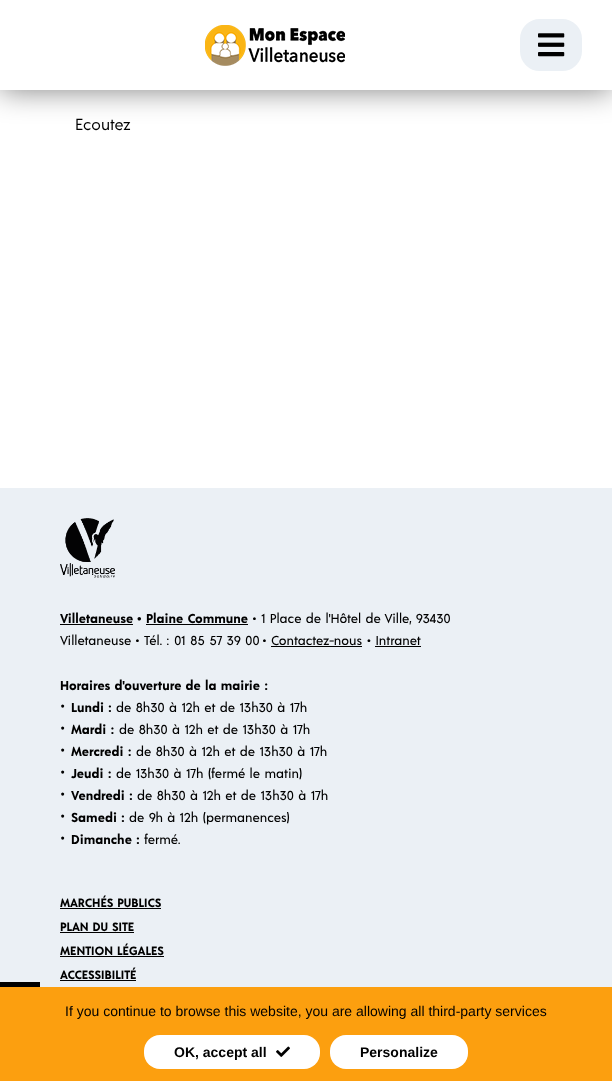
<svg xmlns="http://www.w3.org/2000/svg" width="612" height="1081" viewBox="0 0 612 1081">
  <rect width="100%" height="100%" fill="rgb(255,255,255)"/>
  <rect x="0" y="0" width="612" height="90" fill="rgba(0,0,0,0.5)" filter="blur(15px)"/>
  <rect x="0" y="0" width="612" height="90" fill="rgb(255,255,255)"/>
  <image x="205" y="25" width="140" height="41" href="pic1.png"/>
  <rect x="532.5" y="31.5" width="37" height="27" rx="7.5" fill="none" stroke="rgb(235,240,245)" stroke-width="25"/>
  <image x="538" y="33" width="27" height="24" href="pic2.png"/>
  <text x="75" y="130" font-family="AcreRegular" font-size="16" fill="rgb(0,0,0)">Ecoutez</text>
  <rect x="0" y="488" width="612" height="499" fill="rgb(235,240,245)"/>
  <image x="60" y="518" width="55" height="60" href="pic3.png"/>
  <text x="60" y="623" font-family="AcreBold" font-size="13" font-weight="bold" fill="rgb(0,0,0)">Villetaneuse</text>
  <rect x="60" y="624" width="73" height="1" fill="rgb(0,0,0)"/>
  <text x="137" y="623" font-family="Liberation Sans" font-size="13" fill="rgb(0,0,0)">•</text>
  <text x="146" y="623" font-family="AcreBold" font-size="13" font-weight="bold" fill="rgb(0,0,0)">Plaine Commune</text>
  <rect x="146" y="624" width="102" height="1" fill="rgb(0,0,0)"/>
  <g font-family="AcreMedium" font-size="13" font-weight="500" fill="rgb(0,0,0)">
    <text x="252" y="623">• 1 Place de l'Hôtel de Ville, 93430</text>
    <text x="60" y="645">Villetaneuse</text>
    <text x="135" y="645">•</text>
    <text x="144" y="645">Tél.</text>
    <text x="166" y="645" word-spacing="0.5">: 01 85 57 39 00</text>
    <text x="262" y="645">•</text>
    <text x="271" y="645">Contactez-nous • Intranet</text>
  </g>
  <rect x="271" y="646" width="91" height="1" fill="rgb(0,0,0)"/>
  <rect x="375" y="646" width="46" height="1" fill="rgb(0,0,0)"/>
  <text x="60" y="690" font-family="AcreBold" font-size="13" font-weight="bold" fill="rgb(0,0,0)">Horaires d'ouverture de la mairie :</text>
  <text x="60" y="712" font-family="AcreBold" font-size="18" font-weight="bold" fill="rgb(0,0,0)">·</text>
  <text x="71" y="712" font-family="AcreBold" font-size="13" font-weight="bold" fill="rgb(0,0,0)">Lundi :</text>
  <text x="116" y="712" font-family="AcreMedium" font-size="13" font-weight="500" fill="rgb(0,0,0)">de 8h30 à 12h et de 13h30 à 17h</text>
  <text x="60" y="734" font-family="AcreBold" font-size="18" font-weight="bold" fill="rgb(0,0,0)">·</text>
  <text x="71" y="734" font-family="AcreBold" font-size="13" font-weight="bold" fill="rgb(0,0,0)">Mardi :</text>
  <text x="119" y="734" font-family="AcreMedium" font-size="13" font-weight="500" fill="rgb(0,0,0)">de 8h30 à 12h et de 13h30 à 17h</text>
  <text x="60" y="756" font-family="AcreBold" font-size="18" font-weight="bold" fill="rgb(0,0,0)">·</text>
  <text x="71" y="756" font-family="AcreBold" font-size="13" font-weight="bold" fill="rgb(0,0,0)">Mercredi :</text>
  <text x="136" y="756" font-family="AcreMedium" font-size="13" font-weight="500" fill="rgb(0,0,0)">de 8h30 à 12h et de 13h30 à 17h</text>
  <text x="60" y="778" font-family="AcreBold" font-size="18" font-weight="bold" fill="rgb(0,0,0)">·</text>
  <text x="71" y="778" font-family="AcreBold" font-size="13" font-weight="bold" fill="rgb(0,0,0)">Jeudi :</text>
  <text x="116" y="778" font-family="AcreMedium" font-size="13" font-weight="500" fill="rgb(0,0,0)">de 13h30 à 17h (fermé le matin)</text>
  <text x="60" y="800" font-family="AcreBold" font-size="18" font-weight="bold" fill="rgb(0,0,0)">·</text>
  <text x="71" y="800" font-family="AcreBold" font-size="13" font-weight="bold" fill="rgb(0,0,0)">Vendredi :</text>
  <text x="137" y="800" font-family="AcreMedium" font-size="13" font-weight="500" fill="rgb(0,0,0)">de 8h30 à 12h et de 13h30 à 17h</text>
  <text x="60" y="822" font-family="AcreBold" font-size="18" font-weight="bold" fill="rgb(0,0,0)">·</text>
  <text x="71" y="822" font-family="AcreBold" font-size="13" font-weight="bold" fill="rgb(0,0,0)">Samedi :</text>
  <text x="129" y="822" font-family="AcreMedium" font-size="13" font-weight="500" fill="rgb(0,0,0)">de 9h à 12h (permanences)</text>
  <text x="60" y="844" font-family="AcreBold" font-size="18" font-weight="bold" fill="rgb(0,0,0)">·</text>
  <text x="71" y="844" font-family="AcreBold" font-size="13" font-weight="bold" fill="rgb(0,0,0)">Dimanche :</text>
  <text x="144" y="844" font-family="AcreMedium" font-size="13" font-weight="500" fill="rgb(0,0,0)">fermé.</text>
  <text x="60" y="907" font-family="AcreBold" font-size="12" font-weight="bold" fill="rgb(0,0,0)">MARCHÉS PUBLICS</text>
  <rect x="60" y="908" width="101" height="1" fill="rgb(0,0,0)"/>
  <text x="60" y="931" font-family="AcreBold" font-size="12" font-weight="bold" fill="rgb(0,0,0)">PLAN DU SITE</text>
  <rect x="60" y="932" width="74" height="1" fill="rgb(0,0,0)"/>
  <text x="60" y="955" font-family="AcreBold" font-size="12" font-weight="bold" fill="rgb(0,0,0)">MENTION LÉGALES</text>
  <rect x="60" y="956" width="104" height="1" fill="rgb(0,0,0)"/>
  <text x="60" y="979" font-family="AcreBold" font-size="12" font-weight="bold" fill="rgb(0,0,0)">ACCESSIBILITÉ</text>
  <rect x="60" y="980" width="76" height="1" fill="rgb(0,0,0)"/>
  <rect x="0" y="982" width="40" height="5" fill="rgb(0,0,0)"/>
  <rect x="0" y="987" width="612" height="94" fill="rgb(252,159,15)"/>
  <text x="65" y="1016" font-family="Liberation Sans" font-size="14" fill="rgb(0,0,0)">If you continue to browse this website, you are allowing all third-party services</text>
  <rect x="144" y="1035" width="176" height="34" rx="16" fill="rgb(255,255,255)"/>
  <text x="174" y="1057" font-family="Liberation Sans" font-size="14" font-weight="bold" fill="rgb(0,0,0)">OK, accept all</text>
  <image x="276" y="1046" width="14" height="11" href="pic4.png"/>
  <rect x="330" y="1035" width="138" height="34" rx="16" fill="rgb(255,255,255)"/>
  <text x="360" y="1057" font-family="Liberation Sans" font-size="14" font-weight="bold" fill="rgb(0,0,0)">Personalize</text>
</svg>
